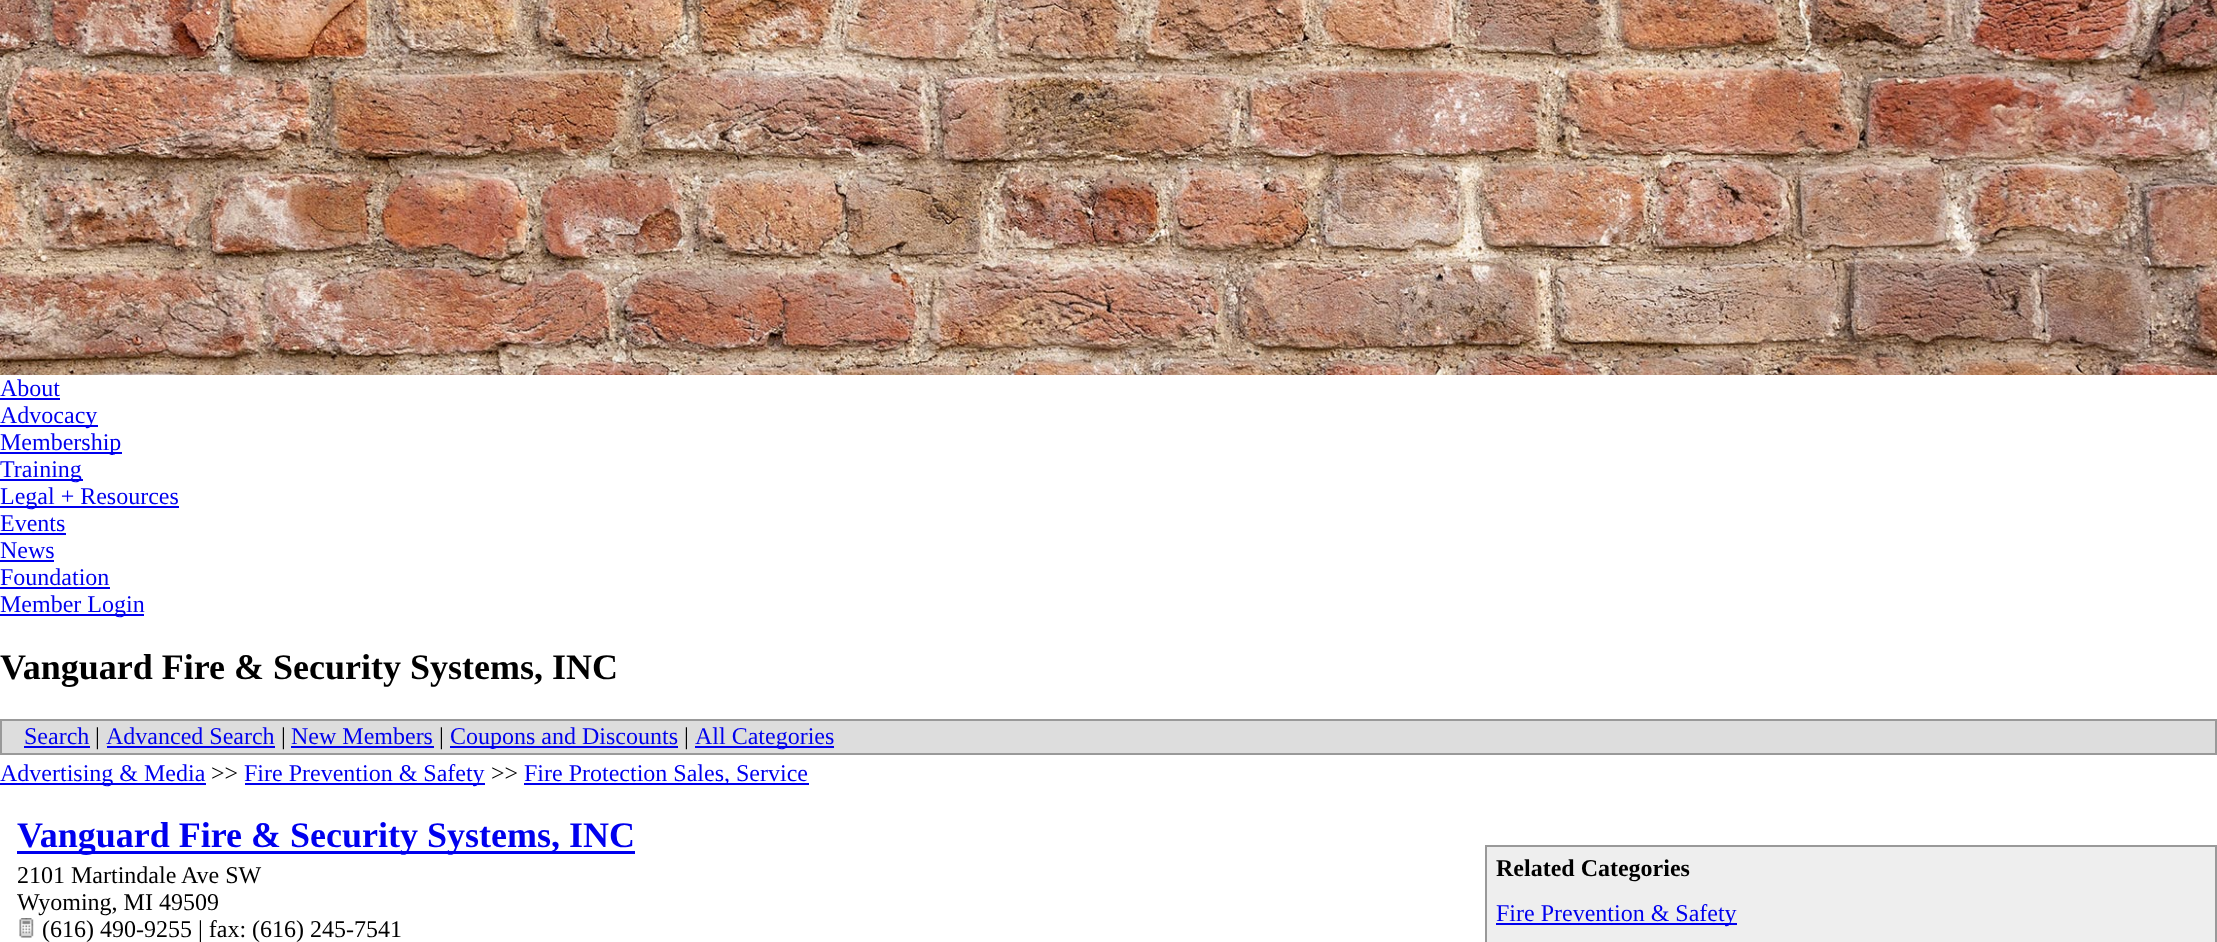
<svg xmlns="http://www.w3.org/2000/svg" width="2217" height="942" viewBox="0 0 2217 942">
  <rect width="100%" height="100%" fill="rgb(255,255,255)"/>
  <image x="0" y="0" width="2217" height="375" href="pic1.png"/>
  <text x="0" y="396" font-family="Liberation Serif" font-size="24" fill="rgb(0,0,238)">About</text>
  <rect x="0" y="398" width="60" height="2" fill="rgb(0,0,238)"/>
  <rect x="0" y="425" width="98" height="2" fill="rgb(0,0,238)"/>
  <text x="0" y="423" font-family="Liberation Serif" font-size="24" fill="rgb(0,0,238)">Advocacy</text>
  <rect x="0" y="452" width="122" height="2" fill="rgb(0,0,238)"/>
  <text x="0" y="450" font-family="Liberation Serif" font-size="24" fill="rgb(0,0,238)">Membership</text>
  <rect x="0" y="479" width="83" height="2" fill="rgb(0,0,238)"/>
  <text x="0" y="477" font-family="Liberation Serif" font-size="24" fill="rgb(0,0,238)">Training</text>
  <rect x="0" y="506" width="179" height="2" fill="rgb(0,0,238)"/>
  <g font-family="Liberation Serif" font-size="24" fill="rgb(0,0,238)">
    <text>
      <tspan x="0" y="504">Legal + Resources</tspan>
      <tspan x="0" y="531">Events</tspan>
    </text>
  </g>
  <rect x="0" y="533" width="66" height="2" fill="rgb(0,0,238)"/>
  <text x="0" y="558" font-family="Liberation Serif" font-size="24" fill="rgb(0,0,238)">News</text>
  <rect x="0" y="560" width="54" height="2" fill="rgb(0,0,238)"/>
  <text x="0" y="585" font-family="Liberation Serif" font-size="24" fill="rgb(0,0,238)">Foundation</text>
  <rect x="0" y="587" width="110" height="2" fill="rgb(0,0,238)"/>
  <rect x="0" y="614" width="144" height="2" fill="rgb(0,0,238)"/>
  <text x="0" y="612" font-family="Liberation Serif" font-size="24" fill="rgb(0,0,238)">Member Login</text>
  <text x="0" y="679" font-family="Liberation Serif" font-size="36" font-weight="bold" fill="rgb(0,0,0)">Vanguard Fire &amp; Security Systems, INC</text>
  <rect x="1" y="720" width="2215" height="34" fill="rgb(221,221,221)" stroke="rgb(153,153,153)" stroke-width="2"/>
  <text x="24" y="744" font-family="Liberation Serif" font-size="24" fill="rgb(0,0,238)">Search</text>
  <rect x="24" y="746" width="66" height="2" fill="rgb(0,0,238)"/>
  <text x="95" y="744" font-family="Liberation Serif" font-size="24" fill="rgb(0,0,0)">|</text>
  <text x="106" y="744" font-family="Liberation Serif" font-size="24" fill="rgb(0,0,238)">Advanced Search</text>
  <rect x="107" y="746" width="168" height="2" fill="rgb(0,0,238)"/>
  <text x="281" y="744" font-family="Liberation Serif" font-size="24" fill="rgb(0,0,0)">|</text>
  <text x="291" y="744" font-family="Liberation Serif" font-size="24" fill="rgb(0,0,238)">New Members</text>
  <rect x="291" y="746" width="143" height="2" fill="rgb(0,0,238)"/>
  <text x="439" y="744" font-family="Liberation Serif" font-size="24" fill="rgb(0,0,0)">|</text>
  <rect x="450" y="746" width="228" height="2" fill="rgb(0,0,238)"/>
  <text x="450" y="744" font-family="Liberation Serif" font-size="24" fill="rgb(0,0,238)">Coupons and Discounts</text>
  <text x="684" y="744" font-family="Liberation Serif" font-size="24" fill="rgb(0,0,0)">|</text>
  <rect x="695" y="746" width="139" height="2" fill="rgb(0,0,238)"/>
  <text x="695" y="744" font-family="Liberation Serif" font-size="24" fill="rgb(0,0,238)">All Categories</text>
  <rect x="0" y="783" width="206" height="2" fill="rgb(0,0,238)"/>
  <text x="0" y="781" font-family="Liberation Serif" font-size="24" fill="rgb(0,0,238)">Advertising &amp; Media</text>
  <text x="211" y="781" font-family="Liberation Serif" font-size="24" fill="rgb(0,0,0)">&gt;&gt;</text>
  <rect x="245" y="783" width="240" height="2" fill="rgb(0,0,238)"/>
  <text x="244" y="781" font-family="Liberation Serif" font-size="24" fill="rgb(0,0,238)">Fire Prevention &amp; Safety</text>
  <text x="491" y="781" font-family="Liberation Serif" font-size="24" fill="rgb(0,0,0)">&gt;&gt;</text>
  <rect x="524" y="783" width="285" height="2" fill="rgb(0,0,238)"/>
  <text x="524" y="781" font-family="Liberation Serif" font-size="24" fill="rgb(0,0,238)">Fire Protection Sales, Service</text>
  <rect x="17" y="851" width="618" height="3" fill="rgb(0,0,238)"/>
  <text x="17" y="847" font-family="Liberation Serif" font-size="36" font-weight="bold" fill="rgb(0,0,238)">Vanguard Fire &amp; Security Systems, INC</text>
  <g font-family="Liberation Serif" font-size="24" fill="rgb(0,0,0)">
    <text>
      <tspan x="17" y="883">2101 Martindale Ave SW</tspan>
      <tspan x="17" y="910">Wyoming, MI 49509</tspan>
    </text>
  </g>
  <image x="19" y="918" width="15" height="20" href="pic2.png"/>
  <text x="42" y="937" font-family="Liberation Serif" font-size="24" fill="rgb(0,0,0)">(616) 490-9255 | fax: (616) 245-7541</text>
  <rect x="1486" y="846" width="730" height="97" fill="rgb(238,238,238)" stroke="rgb(153,153,153)" stroke-width="2"/>
  <text x="1496" y="876" font-family="Liberation Serif" font-size="24" font-weight="bold" fill="rgb(0,0,0)">Related Categories</text>
  <rect x="1496" y="923" width="241" height="2" fill="rgb(0,0,238)"/>
  <text x="1496" y="921" font-family="Liberation Serif" font-size="24" fill="rgb(0,0,238)">Fire Prevention &amp; Safety</text>
</svg>
